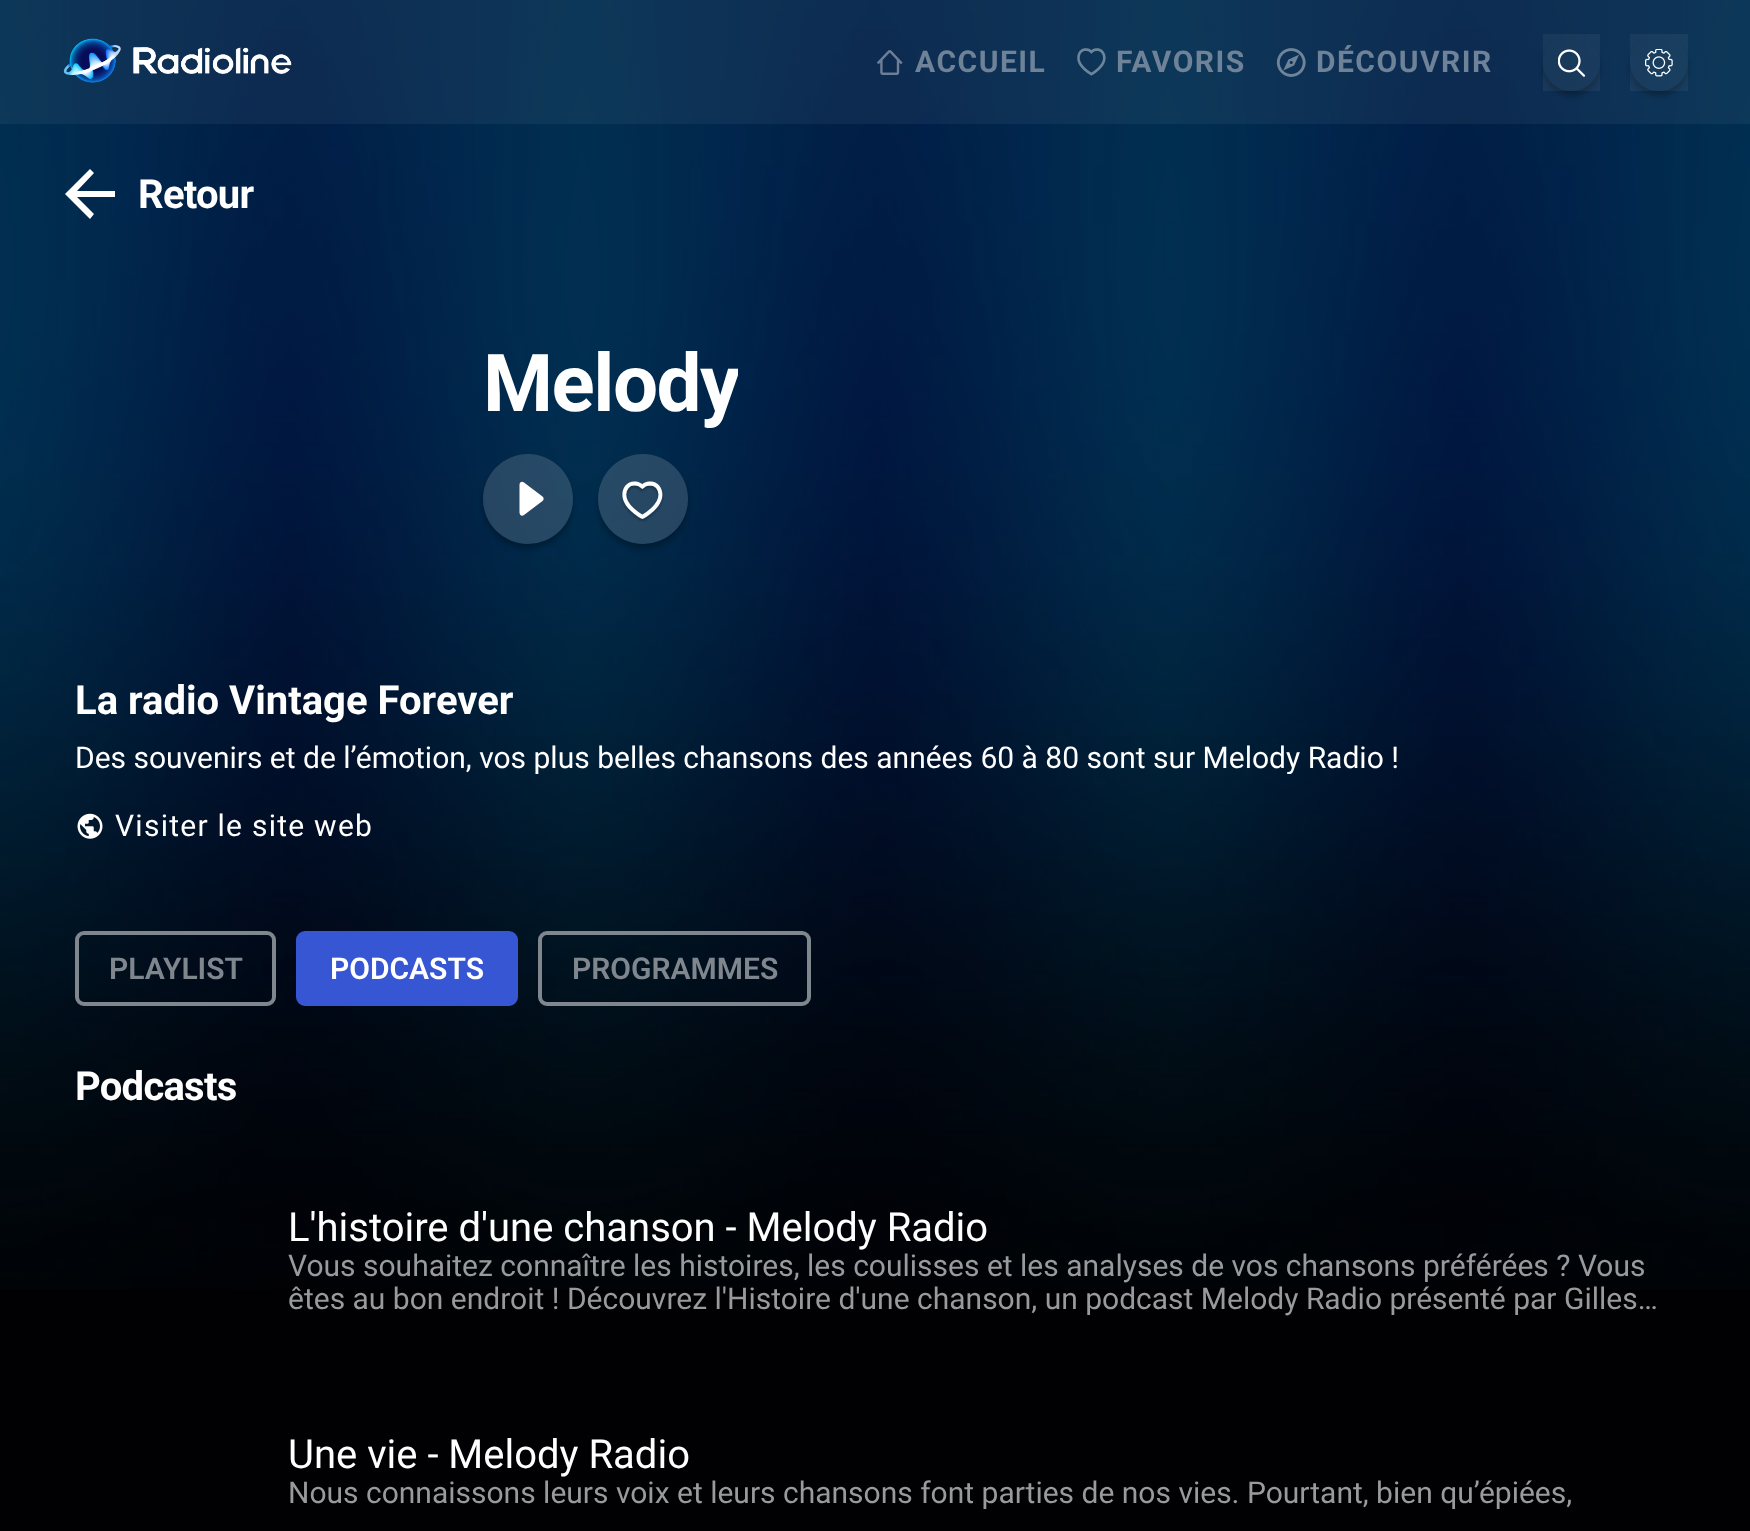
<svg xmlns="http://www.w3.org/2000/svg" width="1750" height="1531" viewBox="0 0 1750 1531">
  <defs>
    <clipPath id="clip1"><path d="M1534 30H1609V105H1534ZM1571.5 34C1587 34 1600 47 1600 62.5C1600 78 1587 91 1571.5 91C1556 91 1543 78 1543 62.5C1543 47 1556 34 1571.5 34Z" clip-rule="evenodd"/></clipPath>
    <clipPath id="clip2"><path d="M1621 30H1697V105H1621ZM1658.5 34H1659.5C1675 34 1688 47 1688 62.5C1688 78 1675 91 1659.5 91H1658.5C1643 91 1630 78 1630 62.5C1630 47 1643 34 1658.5 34Z" clip-rule="evenodd"/></clipPath>
    <clipPath id="clip3"><rect x="483" y="341" width="255" height="88"/></clipPath>
    <clipPath id="clip4"><path d="M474 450H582V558H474ZM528 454C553 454 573 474 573 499C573 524 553 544 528 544C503 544 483 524 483 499C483 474 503 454 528 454Z" clip-rule="evenodd"/></clipPath>
    <clipPath id="clip5"><path d="M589 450H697V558H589ZM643 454C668 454 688 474 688 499C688 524 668 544 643 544C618 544 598 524 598 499C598 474 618 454 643 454Z" clip-rule="evenodd"/></clipPath>
    <clipPath id="clip6"><rect x="75" y="676" width="1600" height="98"/></clipPath>
  </defs>
  <rect width="100%" height="100%" fill="rgb(1,1,3)"/>
  <image x="0" y="0" width="1750" height="1289" href="pic1.png"/>
  <rect x="0" y="0" width="1750" height="124" fill="rgba(255,255,255,0.05)"/>
  <image x="63" y="38" width="229" height="45" href="pic2.png"/>
  <image x="877" y="50" width="26" height="25" href="pic3.png"/>
  <text x="915" y="72" font-family="Roboto" font-size="30" font-weight="bold" letter-spacing="1.5" fill="rgb(110,130,152)">ACCUEIL</text>
  <image x="1077" y="48" width="29" height="28" href="pic4.png"/>
  <text x="1116" y="72" font-family="Roboto" font-size="30" font-weight="bold" letter-spacing="1.5" fill="rgb(110,130,152)">FAVORIS</text>
  <image x="1276" y="48" width="30" height="29" href="pic5.png"/>
  <text x="1316" y="72" font-family="Roboto" font-size="30" font-weight="bold" letter-spacing="1.5" fill="rgb(110,130,152)">DÉCOUVRIR</text>
  <g clip-path="url(#clip1)">
    <rect x="1543" y="39" width="57" height="57" rx="28.5" fill="rgba(0,0,0,0.25)" filter="blur(2.5px)"/>
  </g>
  <rect x="1543" y="34" width="57" height="57" fill="rgba(255,255,255,0.05)"/>
  <image x="1558" y="49" width="28" height="28" href="pic6.png"/>
  <g clip-path="url(#clip2)">
    <rect x="1630" y="39" width="58" height="57" rx="28.5" fill="rgba(0,0,0,0.25)" filter="blur(2.5px)"/>
  </g>
  <rect x="1630" y="34" width="58" height="57" fill="rgba(255,255,255,0.05)"/>
  <image x="1645" y="49" width="28" height="28" href="pic7.png"/>
  <path d="M115 191H77L94 173L90 169L65 194L90 219L94 214L77 197H115Z" fill="rgb(255,255,255)"/>
  <text x="138" y="208" font-family="Roboto" font-size="40" font-weight="bold" letter-spacing="-0.75" fill="rgb(255,255,255)">Retour</text>
  <g clip-path="url(#clip3)">
    <text x="483" y="411" font-family="Roboto" font-size="80" font-weight="bold" letter-spacing="-1.5" fill="rgb(255,255,255)">Melody</text>
  </g>
  <g clip-path="url(#clip4)">
    <rect x="483" y="459" width="90" height="90" rx="45" fill="rgba(0,0,0,0.25)" filter="blur(2.5px)"/>
  </g>
  <circle cx="528" cy="499" r="45" fill="rgba(255,255,255,0.15)"/>
  <path d="M542.5 496.5L524 482.5C522 481 519.5 482 519.5 485V512.5C519.5 515.5 522 516.5 524 515L542.5 501C544 500 544 497.5 542.5 496.5Z" fill="rgb(255,255,255)"/>
  <g clip-path="url(#clip5)">
    <rect x="598" y="459" width="90" height="90" rx="45" fill="rgba(0,0,0,0.25)" filter="blur(2.5px)"/>
  </g>
  <circle cx="643" cy="499" r="45" fill="rgba(255,255,255,0.15)"/>
  <image x="621" y="481" width="43" height="41" href="pic8.png"/>
  <text x="75" y="714" font-family="Roboto" font-size="40" font-weight="bold" fill="rgb(255,255,255)">La radio Vintage Forever</text>
  <g clip-path="url(#clip6)">
    <text x="75" y="768" font-family="Roboto" font-size="30" fill="rgb(255,255,255)">Des souvenirs et de l’émotion, vos plus belles chansons des années 60 à 80 sont sur Melody Radio !</text>
  </g>
  <image x="77" y="813" width="26" height="26" href="pic9.png"/>
  <text x="115" y="836" font-family="Roboto" font-size="30" letter-spacing="1.25" fill="rgb(255,255,255)">Visiter le site web</text>
  <rect x="77" y="933" width="197" height="71" rx="7" fill="none" stroke="rgb(127,134,142)" stroke-width="4"/>
  <text x="109" y="979" font-family="Roboto" font-size="30" font-weight="600" fill="rgb(127,134,142)">PLAYLIST</text>
  <rect x="298" y="933" width="218" height="71" rx="7" fill="rgb(55,86,211)" stroke="rgb(55,86,211)" stroke-width="4"/>
  <text x="330" y="979" font-family="Roboto" font-size="30" font-weight="600" fill="rgb(255,255,255)">PODCASTS</text>
  <rect x="540" y="933" width="269" height="71" rx="7" fill="none" stroke="rgb(127,134,142)" stroke-width="4"/>
  <text x="572" y="979" font-family="Roboto" font-size="30" font-weight="600" fill="rgb(127,134,142)">PROGRAMMES</text>
  <text x="75" y="1100" font-family="Roboto" font-size="40" font-weight="bold" letter-spacing="-0.75" fill="rgb(255,255,255)">Podcasts</text>
  <text x="288" y="1241" font-family="Roboto" font-size="40" fill="rgb(255,255,255)">L'histoire d'une chanson - Melody Radio</text>
  <g font-family="Roboto" font-size="30" fill="rgb(153,154,156)">
    <text>
      <tspan x="288" y="1276">Vous souhaitez connaître les histoires, les coulisses et les analyses de vos chansons préférées ? Vous</tspan>
      <tspan x="288" y="1309">êtes au bon endroit ! Découvrez l'Histoire d'une chanson, un podcast Melody Radio présenté par Gilles…</tspan>
    </text>
  </g>
  <text x="288" y="1468" font-family="Roboto" font-size="40" fill="rgb(255,255,255)">Une vie - Melody Radio</text>
  <text x="288" y="1503" font-family="Roboto" font-size="30" fill="rgb(153,154,156)">Nous connaissons leurs voix et leurs chansons font parties de nos vies. Pourtant, bien qu’épiées,</text>
</svg>
